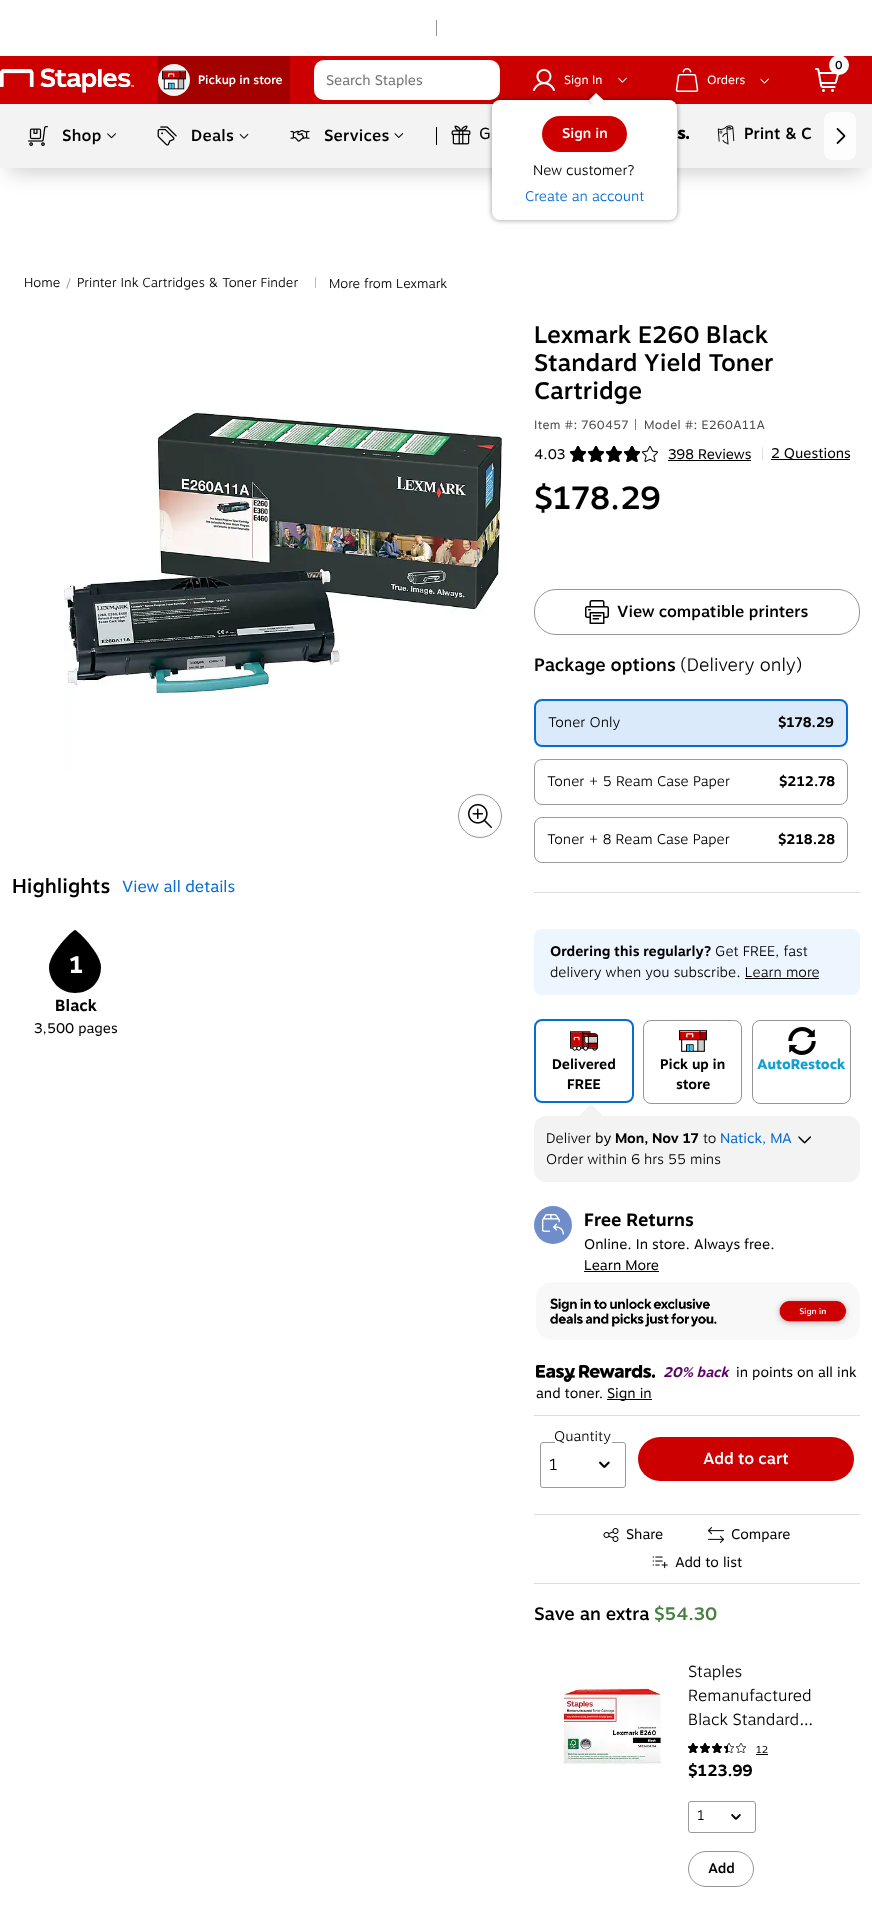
<svg xmlns="http://www.w3.org/2000/svg" width="872" height="1922" viewBox="0 0 872 1922">
  <rect width="100%" height="100%" fill="rgb(255,255,255)"/>
  <rect x="436" y="20" width="1" height="16" fill="rgb(150,150,151)"/>
  <rect x="0" y="56" width="872" height="48" fill="rgb(204,0,0)"/>
  <image x="0" y="68" width="134" height="25" href="pic1.png"/>
  <rect x="158" y="56" width="132" height="48" fill="rgb(163,0,0)"/>
  <circle cx="174" cy="80" r="16" fill="rgb(243,243,243)"/>
  <image x="162" y="70" width="24" height="20" href="pic2.png"/>
  <text x="198" y="84" font-family="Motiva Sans" font-size="12" font-weight="500" fill="rgb(255,255,255)">Pickup in store</text>
  <rect x="314" y="60" width="186" height="40" rx="10" fill="rgb(255,255,255)"/>
  <text x="326" y="85" font-family="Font" font-size="14" fill="rgb(117,117,117)">Search Staples</text>
  <image x="815" y="68" width="24" height="24" href="pic3.png"/>
  <circle cx="839" cy="65" r="9" fill="rgb(255,255,255)" stroke="rgb(255,255,255)" stroke-width="2"/>
  <text x="835" y="69" font-family="Font" font-size="11" font-weight="bold" fill="rgb(0,0,0)">0</text>
  <image x="533" y="69" width="22" height="22" href="pic4.png"/>
  <text x="564" y="84" font-family="Font" font-size="12" fill="rgb(255,255,255)">Sign In</text>
  <image x="618" y="77" width="9" height="6" href="pic5.png"/>
  <rect x="9" y="126" width="854" height="46" fill="rgba(0,0,0,0.2)" filter="blur(10.5px)"/>
  <rect x="0" y="104" width="872" height="64" fill="rgb(243,243,243)"/>
  <image x="677" y="129" width="12" height="11" href="pic15.png"/>
  <rect x="491" y="99" width="187" height="122" rx="9" fill="rgba(0,0,0,0.3)" filter="blur(2px)"/>
  <rect x="492" y="100" width="185" height="120" rx="8" fill="rgb(255,255,255)"/>
  <rect x="589" y="93" width="10" height="10" fill="rgba(0,0,0,0.2)" filter="blur(1.5px)"/>
  <path d="M596 93L603.5 100L596 107L589 100Z" fill="rgb(255,255,255)"/>
  <rect x="542" y="116" width="85" height="36" rx="18" fill="rgb(204,0,0)"/>
  <text x="562" y="138" font-family="Motiva Sans" font-size="14" font-weight="500" fill="rgb(255,255,255)">Sign in</text>
  <text x="533" y="175" font-family="Motiva Sans" font-size="14" font-weight="300" fill="rgb(0,0,0)">New customer?</text>
  <text x="525" y="201" font-family="Motiva Sans" font-size="14" font-weight="300" fill="rgb(8,109,210)">Create an account</text>
  <image x="675" y="68" width="24" height="24" href="pic6.png"/>
  <text x="707" y="84" font-family="Font" font-size="12" fill="rgb(255,255,255)">Orders</text>
  <image x="760" y="78" width="9" height="6" href="pic7.png"/>
  <image x="28" y="126" width="20" height="20" href="pic8.png"/>
  <text x="62" y="141" font-family="Motiva Sans" font-size="16" font-weight="500" letter-spacing="0.25" fill="rgb(0,0,0)">Shop</text>
  <image x="107" y="133" width="9" height="6" href="pic9.png"/>
  <image x="157" y="126" width="20" height="20" href="pic10.png"/>
  <text x="191" y="141" font-family="Motiva Sans" font-size="16" font-weight="500" letter-spacing="0.25" fill="rgb(0,0,0)">Deals</text>
  <image x="239" y="133" width="10" height="6" href="pic11.png"/>
  <image x="290" y="130" width="20" height="12" href="pic12.png"/>
  <text x="324" y="141" font-family="Motiva Sans" font-size="16" font-weight="500" letter-spacing="0.25" fill="rgb(0,0,0)">Services</text>
  <image x="394" y="133" width="10" height="5" href="pic13.png"/>
  <rect x="436" y="127" width="1" height="18" fill="rgb(0,0,0)"/>
  <image x="451" y="125" width="20" height="20" href="pic14.png"/>
  <text x="479" y="139" font-family="Font" font-size="16" fill="rgb(0,0,0)">G</text>
  <image x="717" y="125" width="18" height="20" href="pic16.png"/>
  <text x="744" y="139" font-family="Motiva Sans" font-size="16" font-weight="500" fill="rgb(0,0,0)">Print &amp; C</text>
  <rect x="824" y="112" width="32" height="48" rx="8" fill="rgb(253,253,253)"/>
  <image x="836" y="128" width="10" height="16" href="pic17.png"/>
  <text x="24" y="287" font-family="Motiva Sans" font-size="13" font-weight="300" fill="rgb(0,0,0)">Home</text>
  <text x="66" y="288" font-family="Motiva Sans" font-size="13" font-weight="300" fill="rgb(150,150,150)">/</text>
  <text x="77" y="287" font-family="Motiva Sans" font-size="13" font-weight="300" fill="rgb(0,0,0)">Printer Ink Cartridges &amp; Toner Finder</text>
  <text x="314" y="287" font-family="Motiva Sans" font-size="12" font-weight="300" fill="rgb(150,150,150)">|</text>
  <text x="329" y="288" font-family="Motiva Sans" font-size="13" font-weight="300" fill="rgb(0,0,0)">More from Lexmark</text>
  <image x="64" y="334" width="438" height="438" href="pic18.png"/>
  <circle cx="480" cy="816" r="21.5" fill="none" stroke="rgb(150,150,150)"/>
  <image x="468" y="804" width="24" height="24" href="pic19.png"/>
  <text x="12" y="893" font-family="Motiva Sans" font-size="20" font-weight="500" fill="rgb(0,0,0)">Highlights</text>
  <text x="122" y="892" font-family="Font" font-size="16" fill="rgb(8,109,210)">View all details</text>
  <path d="M75 993C90 993 101 982 101 967C101 953 77 930 75 930C73 930 49 953 49 967C49 982 61 993 75 993" fill="rgb(0,0,0)" fill-rule="evenodd"/>
  <text x="69" y="973" font-family="Motiva Sans" font-size="24" font-weight="bold" fill="rgb(255,255,255)">1</text>
  <text x="55" y="1011" font-family="Motiva Sans" font-size="16" font-weight="bold" fill="rgb(0,0,0)">Black</text>
  <text x="34" y="1033" font-family="Font" font-size="14" fill="rgb(0,0,0)">3,500 pages</text>
  <g font-family="Motiva Sans" font-size="24" font-weight="500" fill="rgb(0,0,0)">
    <text>
      <tspan x="534" y="343">Lexmark E260 Black</tspan>
      <tspan x="534" y="371">Standard Yield Toner</tspan>
      <tspan x="534" y="399">Cartridge</tspan>
    </text>
  </g>
  <g font-family="Font" font-size="12" letter-spacing="0.4" fill="rgb(77,77,79)">
    <text x="534" y="429">Item #: 760457</text>
    <text x="634" y="429">|</text>
    <text x="644" y="429">Model #: E260A11A</text>
  </g>
  <text x="534" y="459" font-family="Font" font-size="14" fill="rgb(0,0,0)">4.03</text>
  <image x="570" y="446" width="16" height="16" href="pic20.png"/>
  <image x="570" y="446" width="16" height="16" href="pic21.png"/>
  <image x="588" y="446" width="16" height="16" href="pic20.png"/>
  <image x="588" y="446" width="16" height="16" href="pic21.png"/>
  <image x="606" y="446" width="16" height="16" href="pic20.png"/>
  <image x="606" y="446" width="16" height="16" href="pic21.png"/>
  <image x="624" y="446" width="16" height="16" href="pic20.png"/>
  <image x="624" y="446" width="16" height="16" href="pic21.png"/>
  <image x="642" y="446" width="16" height="16" href="pic22.png"/>
  <text x="668" y="459" font-family="Font" font-size="14" fill="rgb(0,0,0)">398 Reviews</text>
  <rect x="668" y="460" width="83" height="1" fill="rgb(0,0,0)"/>
  <text x="761" y="459" font-family="Font" font-size="14" fill="rgb(221,221,221)">|</text>
  <rect x="771" y="459" width="79" height="1" fill="rgb(0,0,0)"/>
  <text x="771" y="458" font-family="Font" font-size="14" fill="rgb(0,0,0)">2 Questions</text>
  <text x="534" y="509" font-family="Motiva Sans" font-size="32" font-weight="500" fill="rgb(0,0,0)">$178.29</text>
  <rect x="534.5" y="589.5" width="325" height="45" rx="21.5" fill="none" stroke="rgb(150,150,150)"/>
  <image x="585" y="600" width="24" height="24" href="pic23.png"/>
  <text x="617" y="617" font-family="Motiva Sans" font-size="16" font-weight="500" fill="rgb(0,0,0)">View compatible printers</text>
  <rect x="534" y="892" width="326" height="1" fill="rgb(221,221,221)"/>
  <text x="534" y="671" font-family="Motiva Sans" font-size="18" font-weight="500" fill="rgb(0,0,0)">Package options</text>
  <text x="680" y="671" font-family="Motiva Sans" font-size="18" font-weight="300" fill="rgb(0,0,0)">(Delivery only)</text>
  <rect x="535" y="700" width="312" height="46" rx="7" fill="rgb(218,234,251)" stroke="rgb(8,109,210)" stroke-width="2"/>
  <text x="548" y="727" font-family="Motiva Sans" font-size="14" font-weight="300" fill="rgb(0,0,0)">Toner Only</text>
  <text x="778" y="727" font-family="Motiva Sans" font-size="14" font-weight="bold" fill="rgb(0,0,0)">$178.29</text>
  <rect x="534.5" y="759.5" width="313" height="45" rx="7.5" fill="none" stroke="rgb(155,155,155)"/>
  <text x="547" y="786" font-family="Motiva Sans" font-size="14" font-weight="300" fill="rgb(0,0,0)">Toner + 5 Ream Case Paper</text>
  <text x="779" y="786" font-family="Motiva Sans" font-size="14" font-weight="bold" fill="rgb(0,0,0)">$212.78</text>
  <rect x="534.5" y="817.5" width="313" height="45" rx="7.5" fill="none" stroke="rgb(155,155,155)"/>
  <text x="547" y="844" font-family="Motiva Sans" font-size="14" font-weight="300" fill="rgb(0,0,0)">Toner + 8 Ream Case Paper</text>
  <text x="778" y="844" font-family="Motiva Sans" font-size="14" font-weight="bold" fill="rgb(0,0,0)">$218.28</text>
  <rect x="534" y="929" width="326" height="66" rx="8" fill="rgb(237,246,255)"/>
  <text x="550" y="956" font-family="Motiva Sans" font-size="14" font-weight="bold" fill="rgb(0,0,0)">Ordering this regularly?</text>
  <g font-family="Motiva Sans" font-size="14" font-weight="300" fill="rgb(0,0,0)">
    <text x="715" y="956">Get FREE, fast</text>
    <text x="550" y="977">delivery when you subscribe. Learn more</text>
  </g>
  <rect x="745" y="978" width="74" height="1" fill="rgb(0,0,0)"/>
  <rect x="535" y="1020" width="98" height="82" rx="7" fill="none" stroke="rgb(8,109,210)" stroke-width="2"/>
  <image x="570" y="1031" width="28" height="20" href="pic24.png"/>
  <g font-family="Motiva Sans" font-size="14" font-weight="bold" fill="rgb(0,0,0)">
    <text x="552" y="1069">Delivered</text>
    <text x="567" y="1089">FREE</text>
  </g>
  <rect x="643.5" y="1020.5" width="98" height="83" rx="7.5" fill="none" stroke="rgb(150,150,150)"/>
  <image x="679" y="1030" width="28" height="22" href="pic25.png"/>
  <g font-family="Motiva Sans" font-size="14" font-weight="bold" fill="rgb(0,0,0)">
    <text x="660" y="1069">Pick up in</text>
    <text x="676" y="1089">store</text>
  </g>
  <rect x="752.5" y="1020.5" width="98" height="83" rx="7.5" fill="none" stroke="rgb(150,150,150)"/>
  <image x="788" y="1027" width="27" height="14" href="pic26.png"/>
  <image x="789" y="1041" width="27" height="14" href="pic27.png"/>
  <text x="757" y="1069" font-family="Motiva Sans" font-size="14" font-weight="800" fill="rgb(16,160,209)">AutoRestock</text>
  <path d="M603 1116H579L591 1104Z" fill="rgb(243,243,243)"/>
  <rect x="534" y="1116" width="326" height="66" rx="12" fill="rgb(243,243,243)"/>
  <text x="546" y="1143" font-family="Motiva Sans" font-size="14" font-weight="300" fill="rgb(0,0,0)">Deliver</text>
  <text x="595" y="1143" font-family="Font" font-size="14" fill="rgb(0,0,0)">by</text>
  <text x="615" y="1143" font-family="Motiva Sans" font-size="14" font-weight="bold" fill="rgb(0,0,0)">Mon, Nov 17</text>
  <text x="703" y="1143" font-family="Motiva Sans" font-size="14" font-weight="300" fill="rgb(0,0,0)">to</text>
  <text x="720" y="1143" font-family="Font" font-size="14" fill="rgb(8,109,210)">Natick, MA</text>
  <image x="798" y="1136" width="13" height="8" href="pic28.png"/>
  <text x="546" y="1164" font-family="Motiva Sans" font-size="14" font-weight="300" fill="rgb(0,0,0)">Order within 6 hrs 55 mins</text>
  <circle cx="553" cy="1225" r="19" fill="rgb(111,141,200)"/>
  <image x="542" y="1214" width="22" height="21" href="pic29.png"/>
  <text x="584" y="1226" font-family="Motiva Sans" font-size="18" font-weight="bold" fill="rgb(0,0,0)">Free Returns</text>
  <g font-family="Font" font-size="14" fill="rgb(0,0,0)">
    <text>
      <tspan x="584" y="1249">Online. In store. Always free.</tspan>
      <tspan x="584" y="1270">Learn More</tspan>
    </text>
  </g>
  <rect x="584" y="1271" width="75" height="1" fill="rgb(0,0,0)"/>
  <image x="536" y="1282" width="324" height="58" href="pic30.png"/>
  <image x="536" y="1365" width="119" height="17" href="pic31.png"/>
  <text x="663" y="1377" font-family="Motiva Sans" font-size="14" font-weight="bold" font-style="italic" fill="rgb(91,0,105)">20% back</text>
  <g font-family="Font" font-size="14" fill="rgb(0,0,0)">
    <text x="736" y="1377">in points on all ink</text>
    <text x="536" y="1398">and toner.</text>
  </g>
  <rect x="607" y="1399" width="45" height="1" fill="rgb(0,0,0)"/>
  <text x="607" y="1398" font-family="Font" font-size="14" fill="rgb(0,0,0)">Sign in</text>
  <rect x="534" y="1415" width="326" height="1" fill="rgb(221,221,221)"/>
  <rect x="534" y="1514" width="326" height="1" fill="rgb(221,221,221)"/>
  <rect x="540.5" y="1442.5" width="85" height="45" rx="2.5" fill="none" stroke="rgb(155,155,155)"/>
  <rect x="555" y="1442" width="57" height="1" fill="rgb(255,255,255)"/>
  <text x="554" y="1441" font-family="Motiva Sans" font-size="14" font-weight="300" fill="rgb(0,0,0)">Quantity</text>
  <text x="549" y="1470" font-family="Motiva Sans" font-size="16" font-weight="300" fill="rgb(0,0,0)">1</text>
  <image x="599" y="1461" width="11" height="7" href="pic32.png"/>
  <rect x="638" y="1437" width="216" height="44" rx="22" fill="rgb(204,0,0)"/>
  <text x="703" y="1464" font-family="Motiva Sans" font-size="16" font-weight="500" fill="rgb(255,255,255)">Add to cart</text>
  <rect x="534" y="1583" width="326" height="1" fill="rgb(221,221,221)"/>
  <image x="603" y="1528" width="16" height="14" href="pic33.png"/>
  <text x="626" y="1539" font-family="Font" font-size="14" fill="rgb(0,0,0)">Share</text>
  <image x="708" y="1527" width="16" height="16" href="pic34.png"/>
  <text x="731" y="1539" font-family="Font" font-size="14" fill="rgb(0,0,0)">Compare</text>
  <image x="652" y="1556" width="16" height="13" href="pic35.png"/>
  <text x="675" y="1567" font-family="Font" font-size="14" fill="rgb(0,0,0)">Add to list</text>
  <text x="534" y="1620" font-family="Motiva Sans" font-size="18" font-weight="500" fill="rgb(0,0,0)">Save an extra</text>
  <text x="654" y="1620" font-family="Motiva Sans" font-size="18" font-weight="500" fill="rgb(71,129,64)">$54.30</text>
  <image x="558" y="1686" width="104" height="79" href="pic36.png"/>
  <g font-family="Motiva Sans" font-size="16" font-weight="300" fill="rgb(0,0,0)">
    <text>
      <tspan x="688" y="1677">Staples</tspan>
      <tspan x="688" y="1701">Remanufactured</tspan>
      <tspan x="688" y="1725">Black Standard…</tspan>
    </text>
  </g>
  <image x="688" y="1743" width="10" height="10" href="pic37.png"/>
  <image x="688" y="1743" width="10" height="10" href="pic38.png"/>
  <image x="700" y="1743" width="10" height="10" href="pic37.png"/>
  <image x="700" y="1743" width="10" height="10" href="pic38.png"/>
  <image x="712" y="1743" width="10" height="10" href="pic37.png"/>
  <image x="712" y="1743" width="10" height="10" href="pic38.png"/>
  <image x="724" y="1744" width="4" height="9" href="pic40.png"/>
  <image x="724" y="1743" width="10" height="10" href="pic39.png"/>
  <image x="736" y="1743" width="10" height="10" href="pic41.png"/>
  <text x="756" y="1753" font-family="Font" font-size="10" fill="rgb(0,0,0)">12</text>
  <rect x="756" y="1754" width="12" height="1" fill="rgb(0,0,0)"/>
  <text x="688" y="1776" font-family="Motiva Sans" font-size="16" font-weight="bold" fill="rgb(0,0,0)">$123.99</text>
  <rect x="688.5" y="1801.5" width="67" height="31" rx="2.5" fill="none" stroke="rgb(155,155,155)"/>
  <text x="697" y="1820" font-family="Motiva Sans" font-size="14" font-weight="300" fill="rgb(0,0,0)">1</text>
  <image x="731" y="1814" width="10" height="6" href="pic42.png"/>
  <rect x="688.5" y="1851.5" width="65" height="35" rx="17.5" fill="none" stroke="rgb(150,150,150)"/>
  <text x="708" y="1873" font-family="Motiva Sans" font-size="14" font-weight="500" fill="rgb(0,0,0)">Add</text>
</svg>
